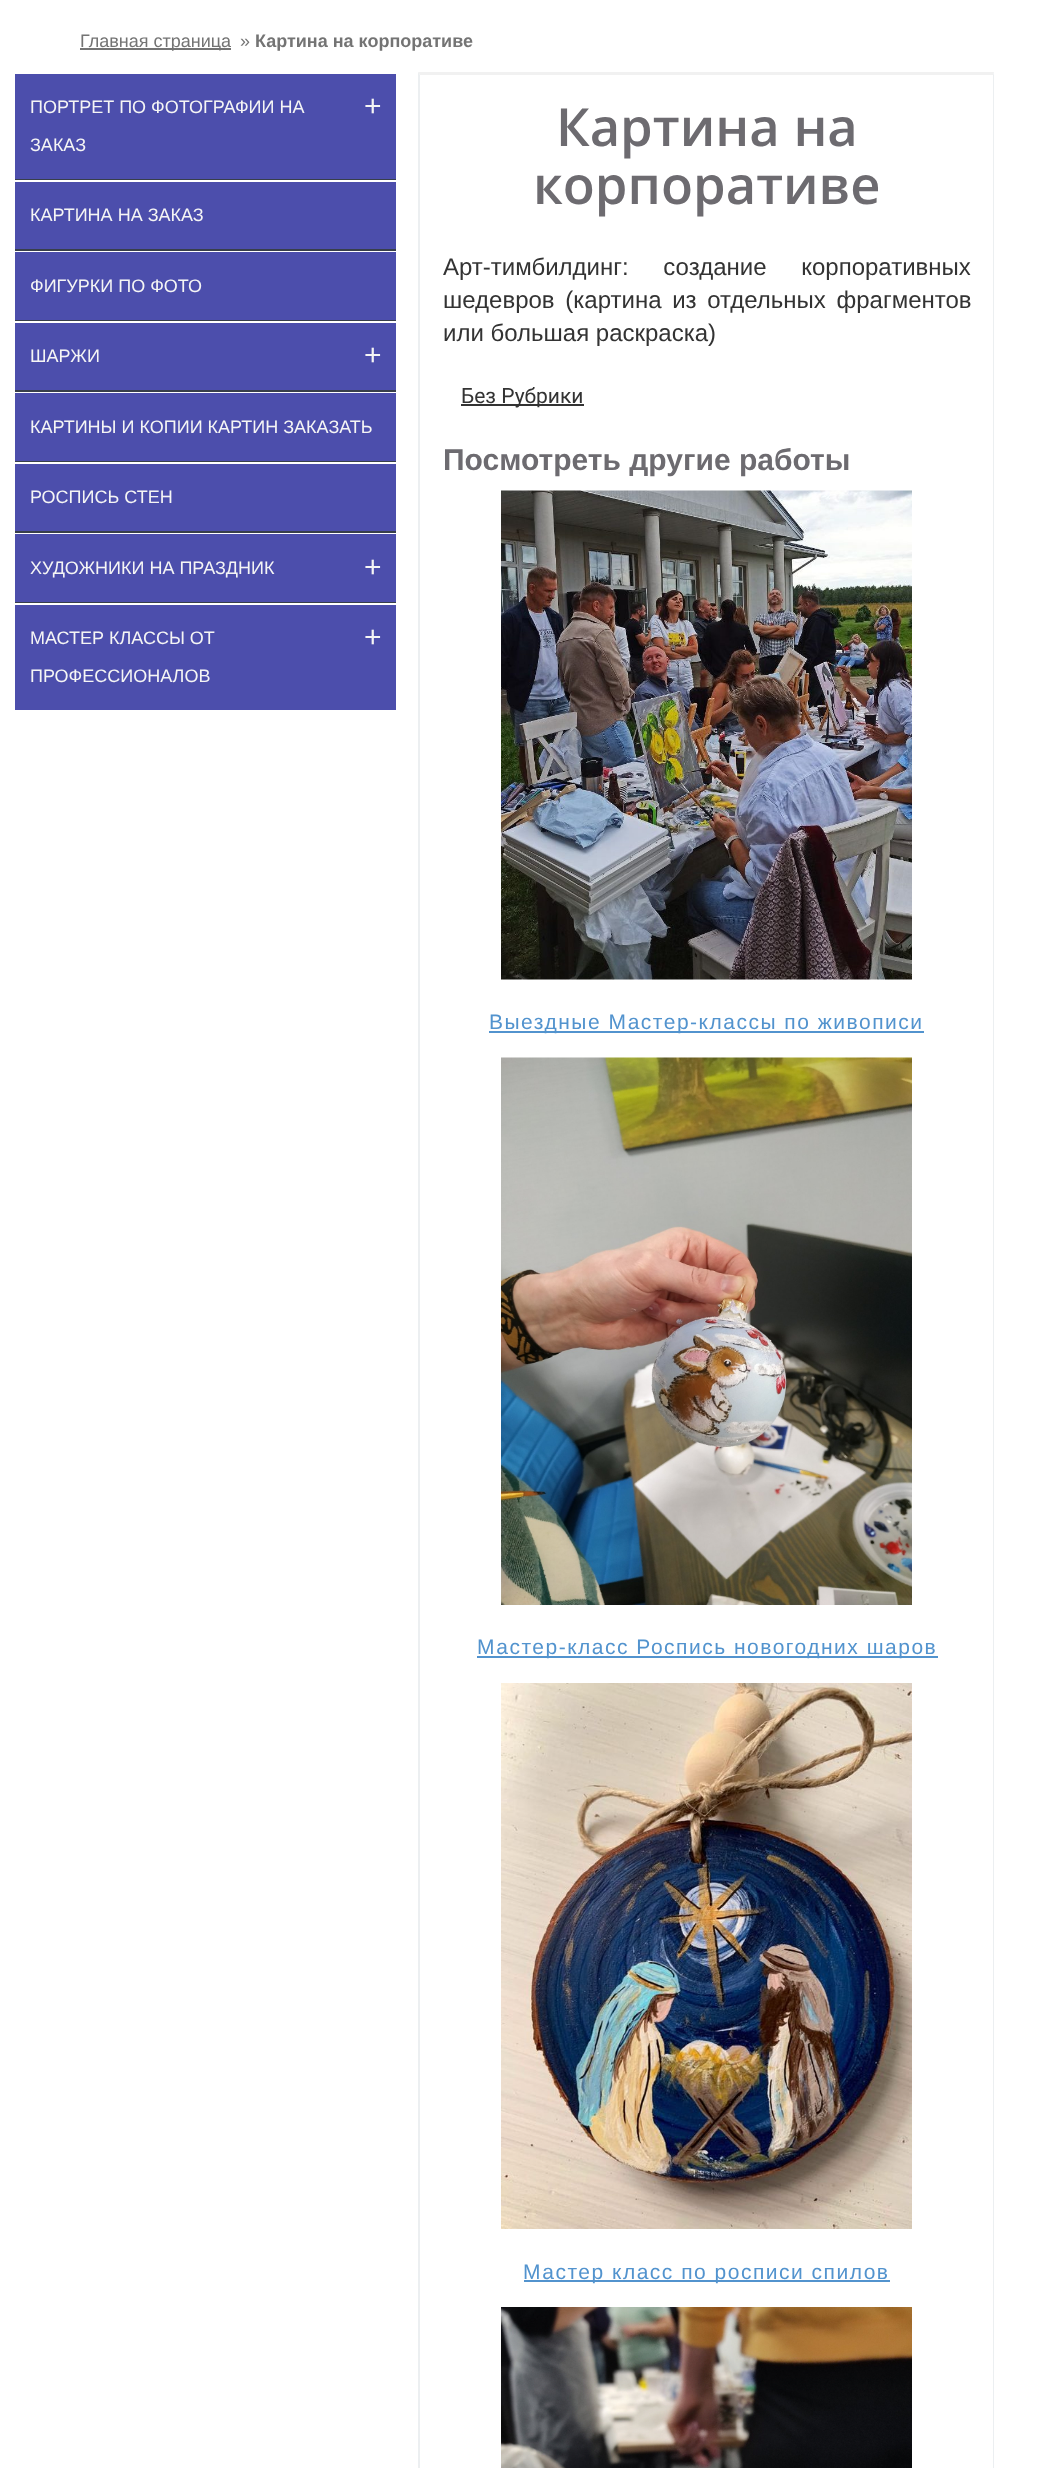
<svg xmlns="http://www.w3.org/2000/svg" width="1046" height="2468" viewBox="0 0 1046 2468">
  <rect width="100%" height="100%" fill="rgb(255,255,255)"/>
  <rect x="80" y="48" width="151" height="2" fill="rgb(116,116,116)"/>
  <g font-family="Liberation Sans" font-size="18" fill="rgb(116,116,116)">
    <text x="80" y="47">Главная страница</text>
    <text x="240" y="47">»</text>
  </g>
  <text x="255" y="47" font-family="Liberation Sans" font-size="18" font-weight="bold" fill="rgb(116,116,116)">Картина на корпоративе</text>
  <rect x="15" y="74" width="381" height="105" fill="rgb(76,78,172)"/>
  <rect x="15" y="179" width="381" height="1" fill="rgb(56,63,74)"/>
  <text x="30" y="113" font-family="Liberation Sans" font-size="18" fill="rgb(245,245,245)">ПОРТРЕТ ПО ФОТОГРАФИИ НА</text>
  <text x="364" y="116" font-family="Liberation Sans" font-size="30" fill="rgb(245,245,245)">+</text>
  <text x="30" y="151" font-family="Liberation Sans" font-size="18" fill="rgb(245,245,245)">ЗАКАЗ</text>
  <rect x="15" y="182" width="381" height="67" fill="rgb(76,78,172)"/>
  <rect x="15" y="249" width="381" height="2" fill="rgb(56,63,74)"/>
  <text x="30" y="221" font-family="Liberation Sans" font-size="18" fill="rgb(245,245,245)">КАРТИНА НА ЗАКАЗ</text>
  <rect x="15" y="252" width="381" height="68" fill="rgb(76,78,172)"/>
  <rect x="15" y="320" width="381" height="1" fill="rgb(56,63,74)"/>
  <text x="30" y="292" font-family="Liberation Sans" font-size="18" fill="rgb(245,245,245)">ФИГУРКИ ПО ФОТО</text>
  <rect x="15" y="323" width="381" height="67" fill="rgb(76,78,172)"/>
  <rect x="15" y="390" width="381" height="2" fill="rgb(56,63,74)"/>
  <text x="30" y="362" font-family="Liberation Sans" font-size="18" fill="rgb(245,245,245)">ШАРЖИ</text>
  <text x="364" y="365" font-family="Liberation Sans" font-size="30" fill="rgb(245,245,245)">+</text>
  <rect x="15" y="393" width="381" height="68" fill="rgb(76,78,172)"/>
  <rect x="15" y="461" width="381" height="1" fill="rgb(56,63,74)"/>
  <text x="30" y="433" font-family="Liberation Sans" font-size="18" fill="rgb(245,245,245)">КАРТИНЫ И КОПИИ КАРТИН ЗАКАЗАТЬ</text>
  <rect x="15" y="464" width="381" height="67" fill="rgb(76,78,172)"/>
  <rect x="15" y="531" width="381" height="2" fill="rgb(56,63,74)"/>
  <text x="30" y="503" font-family="Liberation Sans" font-size="18" fill="rgb(245,245,245)">РОСПИСЬ СТЕН</text>
  <rect x="15" y="534" width="381" height="68" fill="rgb(76,78,172)"/>
  <rect x="15" y="602" width="381" height="1" fill="rgb(56,63,74)"/>
  <text x="30" y="574" font-family="Liberation Sans" font-size="18" fill="rgb(245,245,245)">ХУДОЖНИКИ НА ПРАЗДНИК</text>
  <text x="364" y="577" font-family="Liberation Sans" font-size="30" fill="rgb(245,245,245)">+</text>
  <rect x="15" y="605" width="381" height="105" fill="rgb(76,78,172)"/>
  <text x="30" y="644" font-family="Liberation Sans" font-size="18" fill="rgb(245,245,245)">МАСТЕР КЛАССЫ ОТ</text>
  <text x="364" y="647" font-family="Liberation Sans" font-size="30" fill="rgb(245,245,245)">+</text>
  <text x="30" y="682" font-family="Liberation Sans" font-size="18" fill="rgb(245,245,245)">ПРОФЕССИОНАЛОВ</text>
  <path d="M418 72H994L993 75H420Z" fill="rgb(241,241,241)"/>
  <path d="M994 72V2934L993 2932V75Z" fill="rgb(236,239,241)"/>
  <path d="M418 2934V72L420 75V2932Z" fill="rgb(236,239,241)"/>
  <g font-family="Open Sans" font-size="52.5" font-weight="600" fill="rgb(109,107,112)">
    <text x="556" y="146">Картина на</text>
    <text x="533" y="204">корпоративе</text>
  </g>
  <g font-family="Liberation Sans" font-size="24" fill="rgb(51,51,51)">
    <text>
      <tspan x="443" y="275" word-spacing="28">Арт-тимбилдинг: создание корпоративных</tspan>
      <tspan x="443" y="308" word-spacing="4">шедевров (картина из отдельных фрагментов</tspan>
      <tspan x="443" y="341">или большая раскраска)</tspan>
    </text>
  </g>
  <rect x="461" y="404" width="123" height="2" fill="rgb(51,51,51)"/>
  <text x="461" y="403" font-family="Roboto" font-size="21" fill="rgb(51,51,51)">Без Рубрики</text>
  <text x="443" y="470" font-family="Liberation Sans" font-size="30" font-weight="bold" fill="rgb(109,107,112)">Посмотреть другие работы</text>
  <image x="501" y="490" width="411" height="490" href="pic1.png"/>
  <rect x="489" y="1031" width="435" height="2" fill="rgb(82,147,206)"/>
  <text x="489" y="1029" font-family="Liberation Sans" font-size="21" letter-spacing="1.5" fill="rgb(82,147,206)">Выездные Мастер-классы по живописи</text>
  <image x="501" y="1057" width="411" height="548" href="pic2.png"/>
  <rect x="477" y="1656" width="461" height="2" fill="rgb(82,147,206)"/>
  <text x="477" y="1654" font-family="Liberation Sans" font-size="21" letter-spacing="1.5" fill="rgb(82,147,206)">Мастер-класс Роспись новогодних шаров</text>
  <image x="501" y="1683" width="411" height="546" href="pic3.png"/>
  <rect x="524" y="2280" width="366" height="2" fill="rgb(82,147,206)"/>
  <text x="523" y="2279" font-family="Liberation Sans" font-size="21" letter-spacing="1.5" fill="rgb(82,147,206)">Мастер класс по росписи спилов</text>
  <image x="501" y="2307" width="411" height="161" href="pic4.png"/>
</svg>
